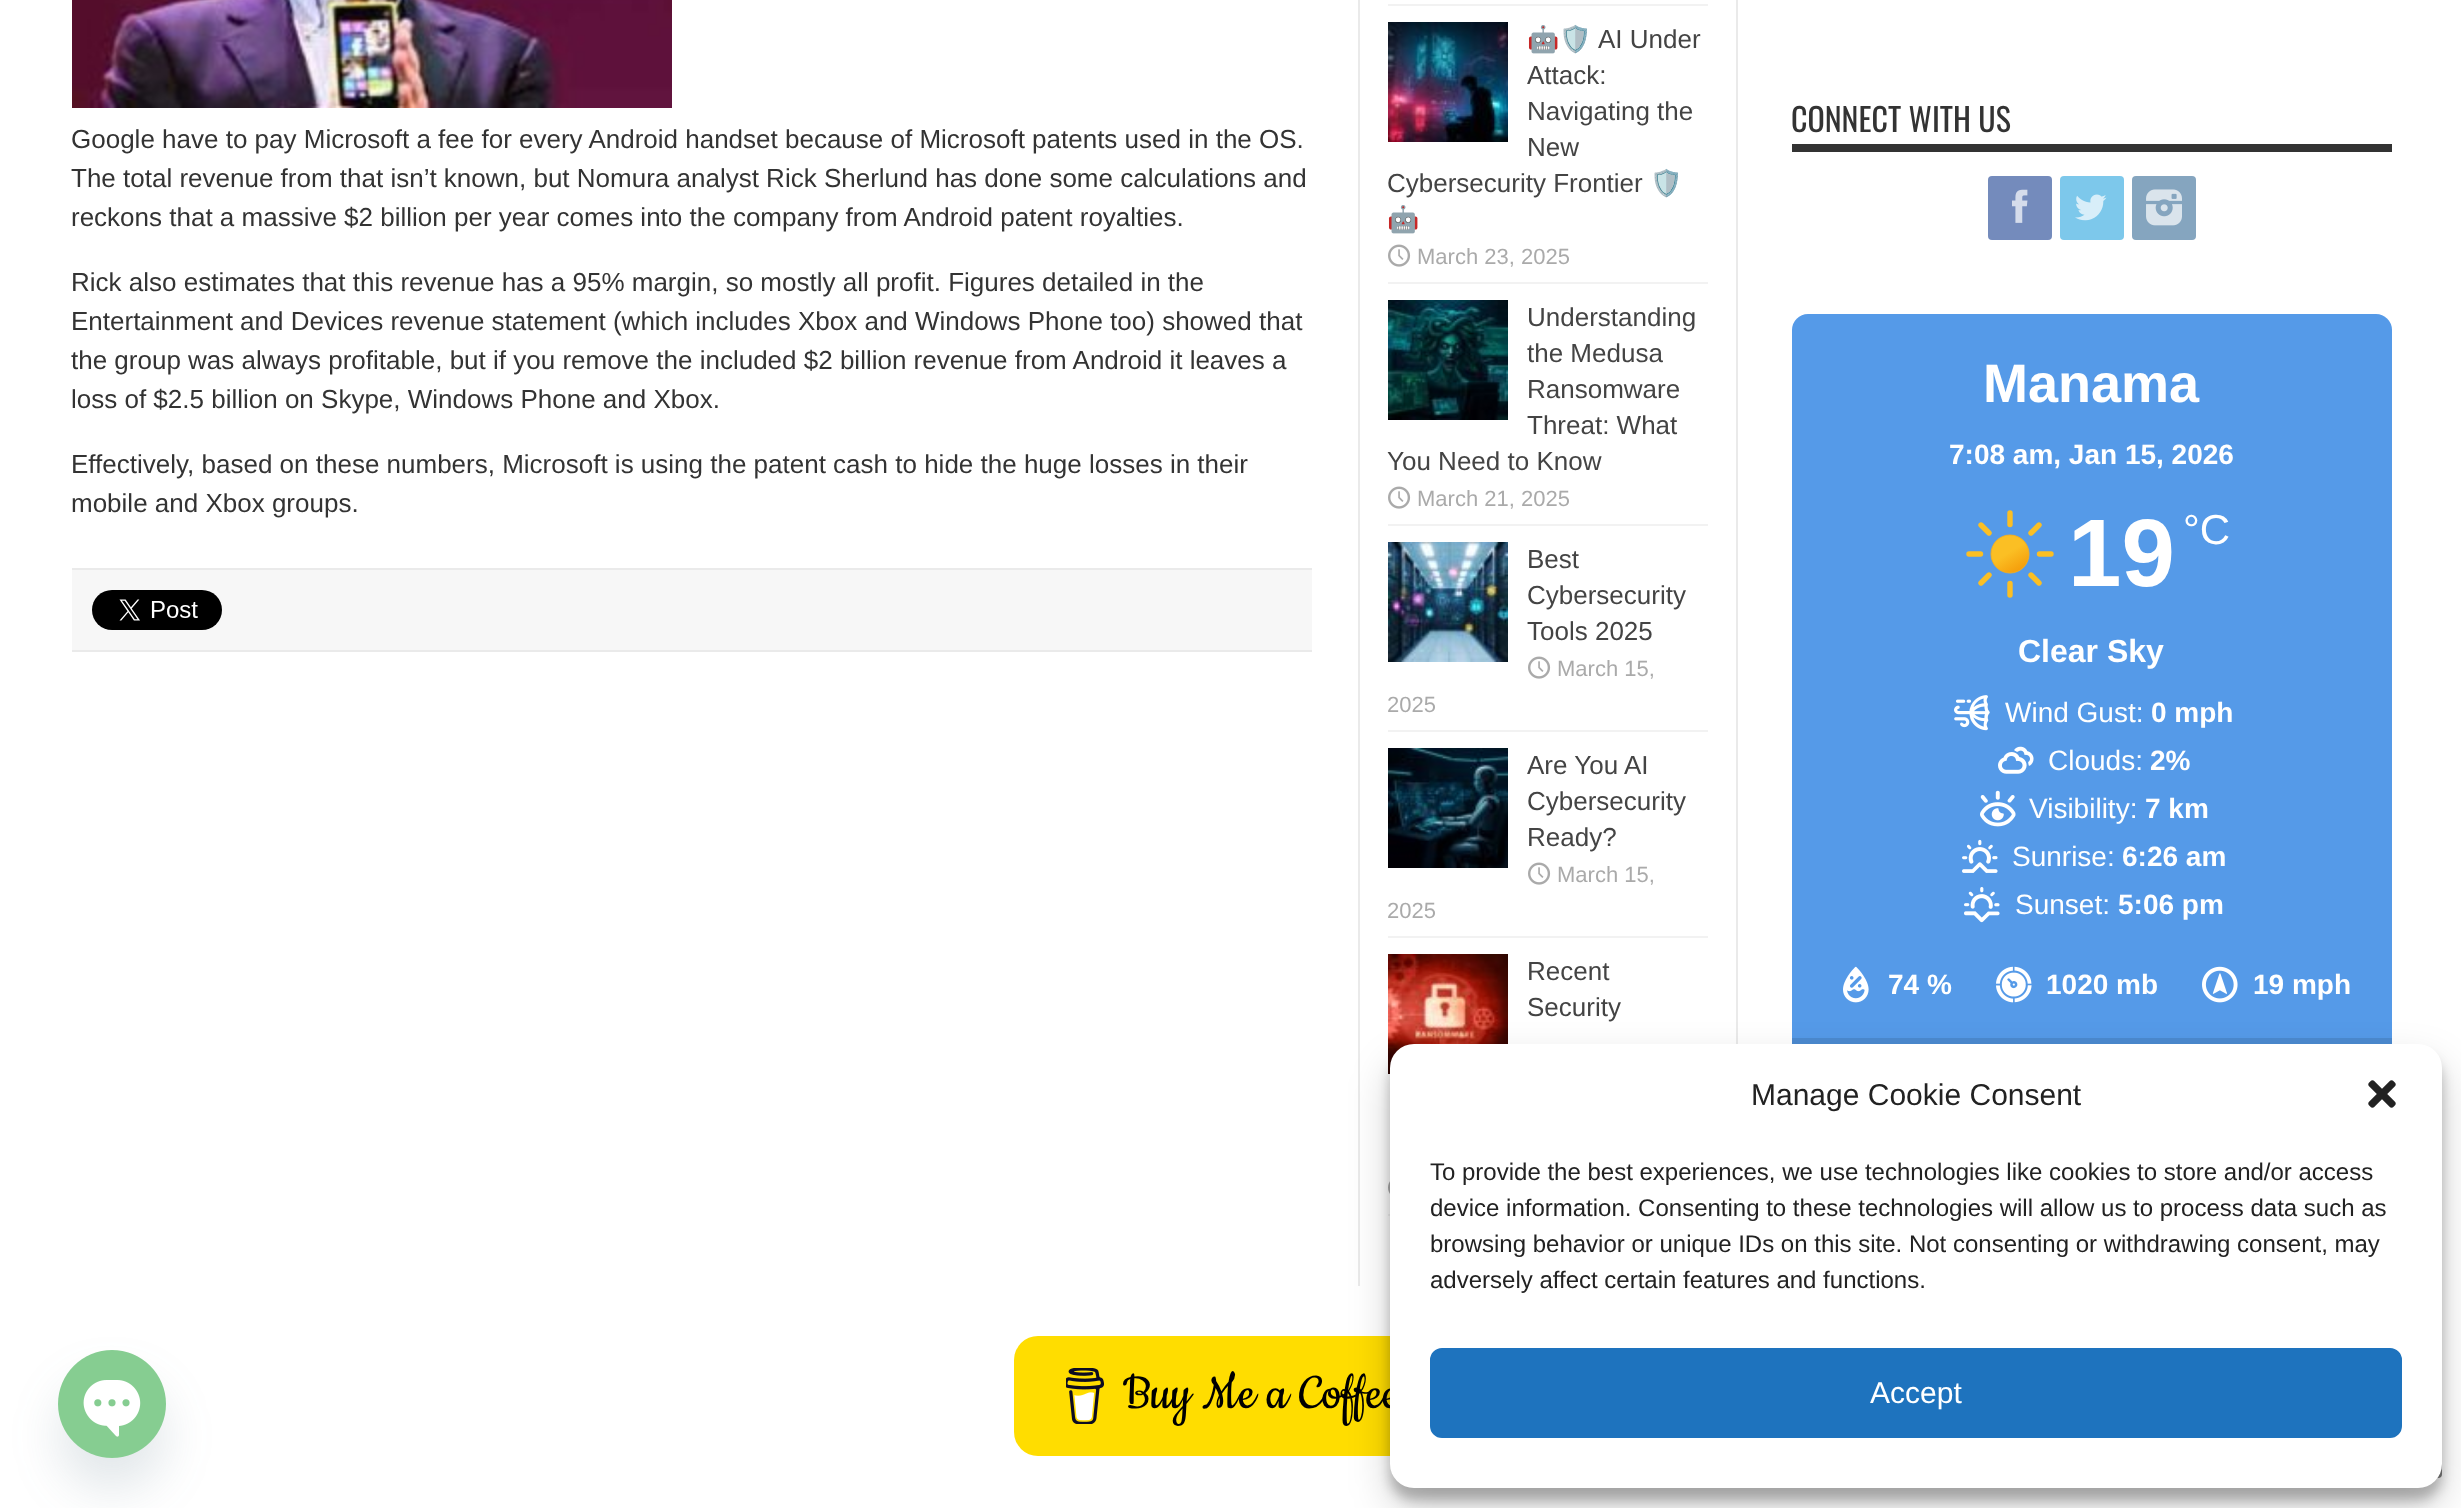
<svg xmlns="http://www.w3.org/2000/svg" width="2461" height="1508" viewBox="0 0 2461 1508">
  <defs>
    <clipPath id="clip1"><rect x="1388" y="6" width="320" height="276"/></clipPath>
    <linearGradient id="g1" gradientUnits="userSpaceOnUse" x1="2000" y1="538" x2="2020" y2="570"><stop offset="0" stop-color="rgb(251,191,36)"/><stop offset="0.45" stop-color="rgb(251,191,36)"/><stop offset="1" stop-color="rgb(245,158,11)"/></linearGradient>
  </defs>
  <rect width="100%" height="100%" fill="rgb(255,255,255)"/>
  <image x="72" y="0" width="600" height="108" href="pic1.png"/>
  <g font-family="Liberation Sans" font-size="26" fill="rgb(51,51,51)">
    <text>
      <tspan x="71" y="148">Google have to pay Microsoft a fee for every Android handset because of Microsoft patents used in the OS.</tspan>
      <tspan x="71" y="187">The total revenue from that isn’t known, but Nomura analyst Rick Sherlund has done some calculations and</tspan>
      <tspan x="71" y="226">reckons that a massive $2 billion per year comes into the company from Android patent royalties.</tspan>
    </text>
    <text>
      <tspan x="71" y="291">Rick also estimates that this revenue has a 95% margin, so mostly all profit. Figures detailed in the</tspan>
      <tspan x="71" y="330">Entertainment and Devices revenue statement (which includes Xbox and Windows Phone too) showed that</tspan>
      <tspan x="71" y="369">the group was always profitable, but if you remove the included $2 billion revenue from Android it leaves a</tspan>
      <tspan x="71" y="408">loss of $2.5 billion on Skype, Windows Phone and Xbox.</tspan>
    </text>
    <text>
      <tspan x="71" y="473">Effectively, based on these numbers, Microsoft is using the patent cash to hide the huge losses in their</tspan>
      <tspan x="71" y="512">mobile and Xbox groups.</tspan>
    </text>
  </g>
  <rect x="72" y="570" width="1240" height="80" fill="rgb(247,247,247)"/>
  <rect x="72" y="568" width="1240" height="2" fill="rgb(234,234,234)"/>
  <rect x="72" y="650" width="1240" height="2" fill="rgb(234,234,234)"/>
  <image x="92" y="590" width="130" height="40" href="pic2.png"/>
  <rect x="1736" y="0" width="2" height="1044" fill="rgb(234,234,234)"/>
  <rect x="1358" y="0" width="2" height="1286" fill="rgb(234,234,234)"/>
  <rect x="1388" y="4" width="320" height="2" fill="rgb(242,242,242)"/>
  <rect x="1388" y="282" width="320" height="2" fill="rgb(242,242,242)"/>
  <image x="1388" y="22" width="120" height="120" href="pic3.png"/>
  <text x="1527" y="48" font-family="Noto Color Emoji" font-size="26" fill="rgb(68,68,68)">🤖🛡️</text>
  <g font-family="Liberation Sans" font-size="26" fill="rgb(68,68,68)">
    <text x="1598" y="48">AI Under</text>
    <text>
      <tspan x="1527" y="84">Attack:</tspan>
      <tspan x="1527" y="120">Navigating the</tspan>
      <tspan x="1527" y="156">New</tspan>
    </text>
    <text x="1387" y="192">Cybersecurity Frontier</text>
  </g>
  <text x="1650" y="192" font-family="Noto Color Emoji" font-size="26" fill="rgb(68,68,68)">🛡️</text>
  <g clip-path="url(#clip1)">
    <text x="1387" y="228" font-family="Noto Color Emoji" font-size="26" fill="rgb(68,68,68)">🤖</text>
  </g>
  <image x="1388" y="244" width="23" height="23" href="pic4.png"/>
  <text x="1417" y="264" font-family="Liberation Sans" font-size="22" fill="rgb(170,170,170)">March 23, 2025</text>
  <rect x="1388" y="524" width="320" height="2" fill="rgb(242,242,242)"/>
  <image x="1388" y="300" width="120" height="120" href="pic5.png"/>
  <g font-family="Liberation Sans" font-size="26" fill="rgb(68,68,68)">
    <text>
      <tspan x="1527" y="326">Understanding</tspan>
      <tspan x="1527" y="362">the Medusa</tspan>
      <tspan x="1527" y="398">Ransomware</tspan>
      <tspan x="1527" y="434">Threat: What</tspan>
    </text>
    <text x="1387" y="470">You Need to Know</text>
  </g>
  <image x="1388" y="486" width="23" height="23" href="pic4.png"/>
  <text x="1417" y="506" font-family="Liberation Sans" font-size="22" fill="rgb(170,170,170)">March 21, 2025</text>
  <rect x="1388" y="730" width="320" height="2" fill="rgb(242,242,242)"/>
  <image x="1388" y="542" width="120" height="120" href="pic6.png"/>
  <g font-family="Liberation Sans" font-size="26" fill="rgb(68,68,68)">
    <text>
      <tspan x="1527" y="568">Best</tspan>
      <tspan x="1527" y="604">Cybersecurity</tspan>
      <tspan x="1527" y="640">Tools 2025</tspan>
    </text>
  </g>
  <image x="1528" y="656" width="23" height="23" href="pic4.png"/>
  <g font-family="Liberation Sans" font-size="22" fill="rgb(170,170,170)">
    <text x="1557" y="676">March 15,</text>
    <text x="1387" y="712">2025</text>
  </g>
  <rect x="1388" y="936" width="320" height="2" fill="rgb(242,242,242)"/>
  <image x="1388" y="748" width="120" height="120" href="pic7.png"/>
  <g font-family="Liberation Sans" font-size="26" fill="rgb(68,68,68)">
    <text>
      <tspan x="1527" y="774">Are You AI</tspan>
      <tspan x="1527" y="810">Cybersecurity</tspan>
      <tspan x="1527" y="846">Ready?</tspan>
    </text>
  </g>
  <image x="1528" y="862" width="23" height="23" href="pic4.png"/>
  <g font-family="Liberation Sans" font-size="22" fill="rgb(170,170,170)">
    <text x="1557" y="882">March 15,</text>
    <text x="1387" y="918">2025</text>
  </g>
  <rect x="1388" y="1214" width="2" height="2" fill="rgb(242,242,242)"/>
  <image x="1388" y="954" width="120" height="120" href="pic8.png"/>
  <g font-family="Liberation Sans" font-size="26" fill="rgb(68,68,68)">
    <text>
      <tspan x="1527" y="980">Recent</tspan>
      <tspan x="1527" y="1016">Security</tspan>
    </text>
  </g>
  <image x="1388" y="1181" width="2" height="13" href="pic9.png"/>
  <rect x="1792" y="144" width="600" height="8" fill="rgb(51,51,51)"/>
  <text x="1791" y="132" font-family="Oswald" font-size="32" fill="rgb(51,51,51)">CONNECT WITH US</text>
  <rect x="1988" y="176" width="64" height="64" rx="4" fill="rgb(116,139,188)"/>
  <image x="2012" y="189" width="16" height="34" href="pic10.png"/>
  <rect x="2060" y="176" width="64" height="64" rx="4" fill="rgb(125,200,235)"/>
  <image x="2075" y="194" width="32" height="27" href="pic11.png"/>
  <rect x="2132" y="176" width="64" height="64" rx="4" fill="rgb(133,165,191)"/>
  <image x="2146" y="189" width="36" height="37" href="pic12.png"/>
  <rect x="1792" y="314" width="600" height="780" rx="16" fill="rgb(85,154,232)"/>
  <text x="1983" y="402" font-family="Liberation Sans" font-size="54" font-weight="bold" fill="rgb(255,255,255)">Manama</text>
  <text x="1949" y="464" font-family="Liberation Sans" font-size="28" font-weight="bold" fill="rgb(255,255,255)">7:08 am, Jan 15, 2026</text>
  <circle cx="2010" cy="554" r="19" fill="url(#g1)" stroke="rgb(248,175,24)" stroke-width="0.9"/>
  <path d="M2010 524.5V513M2010 595V583.5M2031 533L2039 525M1981 583L1989 575M1989 533L1981 525M2039 583L2031 575M1980.5 554H1969M2051 554H2039.5" fill="none" stroke="rgb(251,191,36)" stroke-width="5.4" stroke-linecap="round"/>
  <text x="2068" y="586" font-family="Liberation Sans" font-size="96" font-weight="bold" fill="rgb(255,255,255)">19</text>
  <text x="2183" y="544" font-family="Liberation Sans" font-size="42" fill="rgb(255,255,255)">°C</text>
  <text x="2018" y="662" font-family="Liberation Sans" font-size="32" font-weight="bold" fill="rgb(255,255,255)">Clear Sky</text>
  <image x="1954" y="695" width="36" height="36" href="pic13.png"/>
  <text x="2005" y="722" font-family="Liberation Sans" font-size="28" fill="rgb(255,255,255)">Wind Gust:</text>
  <text x="2151" y="722" font-family="Liberation Sans" font-size="28" font-weight="bold" fill="rgb(255,255,255)">0 mph</text>
  <image x="1998" y="746" width="36" height="28" href="pic14.png"/>
  <text x="2048" y="770" font-family="Liberation Sans" font-size="28" fill="rgb(255,255,255)">Clouds:</text>
  <text x="2150" y="770" font-family="Liberation Sans" font-size="28" font-weight="bold" fill="rgb(255,255,255)">2%</text>
  <image x="1980" y="790" width="36" height="37" href="pic15.png"/>
  <text x="2029" y="818" font-family="Liberation Sans" font-size="28" fill="rgb(255,255,255)">Visibility:</text>
  <text x="2145" y="818" font-family="Liberation Sans" font-size="28" font-weight="bold" fill="rgb(255,255,255)">7 km</text>
  <image x="1962" y="839" width="36" height="34" href="pic16.png"/>
  <text x="2012" y="866" font-family="Liberation Sans" font-size="28" fill="rgb(255,255,255)">Sunrise:</text>
  <text x="2122" y="866" font-family="Liberation Sans" font-size="28" font-weight="bold" fill="rgb(255,255,255)">6:26 am</text>
  <image x="1964" y="887" width="36" height="36" href="pic17.png"/>
  <text x="2015" y="914" font-family="Liberation Sans" font-size="28" fill="rgb(255,255,255)">Sunset:</text>
  <text x="2118" y="914" font-family="Liberation Sans" font-size="28" font-weight="bold" fill="rgb(255,255,255)">5:06 pm</text>
  <image x="1843" y="966" width="26" height="37" href="pic18.png"/>
  <text x="1888" y="994" font-family="Liberation Sans" font-size="28" font-weight="bold" fill="rgb(255,255,255)">74 %</text>
  <image x="1996" y="966" width="36" height="37" href="pic19.png"/>
  <text x="2046" y="994" font-family="Liberation Sans" font-size="28" font-weight="bold" fill="rgb(255,255,255)">1020 mb</text>
  <image x="2202" y="966" width="36" height="37" href="pic20.png"/>
  <text x="2253" y="994" font-family="Liberation Sans" font-size="28" font-weight="bold" fill="rgb(255,255,255)">19 mph</text>
  <rect x="1792" y="1038" width="600" height="6" fill="rgba(0,0,0,0.1)"/>
  <rect x="1014" y="1336" width="434" height="120" rx="24" fill="rgb(255,221,0)"/>
  <image x="1066" y="1368" width="38" height="56" href="pic21.png"/>
  <text x="1123" y="1408" font-family="Cookie" font-size="56" fill="rgb(0,0,0)">Buy Me a Coffee</text>
  <rect x="58" y="1382" width="108" height="108" rx="54" fill="rgba(73,104,126,0.16)" filter="blur(24px)"/>
  <image x="58" y="1350" width="108" height="108" href="pic22.png"/>
  <rect x="2362" y="1398" width="80" height="80" rx="4" fill="rgb(124,124,124)"/>
  <rect x="1390" y="1056" width="1052" height="444" rx="24" fill="rgba(0,0,0,0.23)" filter="blur(6px)"/>
  <rect x="1390" y="1064" width="1052" height="444" rx="24" fill="rgba(0,0,0,0.19)" filter="blur(20px)"/>
  <rect x="1390" y="1044" width="1052" height="444" rx="24" fill="rgb(255,255,255)"/>
  <text x="1751" y="1105" font-family="Liberation Sans" font-size="30" fill="rgb(34,34,34)">Manage Cookie Consent</text>
  <image x="2368" y="1080" width="28" height="28" href="pic23.png"/>
  <g font-family="Liberation Sans" font-size="24" fill="rgb(34,34,34)">
    <text>
      <tspan x="1430" y="1180">To provide the best experiences, we use technologies like cookies to store and/or access</tspan>
      <tspan x="1430" y="1216">device information. Consenting to these technologies will allow us to process data such as</tspan>
      <tspan x="1430" y="1252">browsing behavior or unique IDs on this site. Not consenting or withdrawing consent, may</tspan>
      <tspan x="1430" y="1288">adversely affect certain features and functions.</tspan>
    </text>
  </g>
  <rect x="1431" y="1349" width="970" height="88" rx="11" fill="rgb(30,115,190)" stroke="rgb(30,115,190)" stroke-width="2"/>
  <text x="1870" y="1403" font-family="Liberation Sans" font-size="30" fill="rgb(255,255,255)">Accept</text>
</svg>
